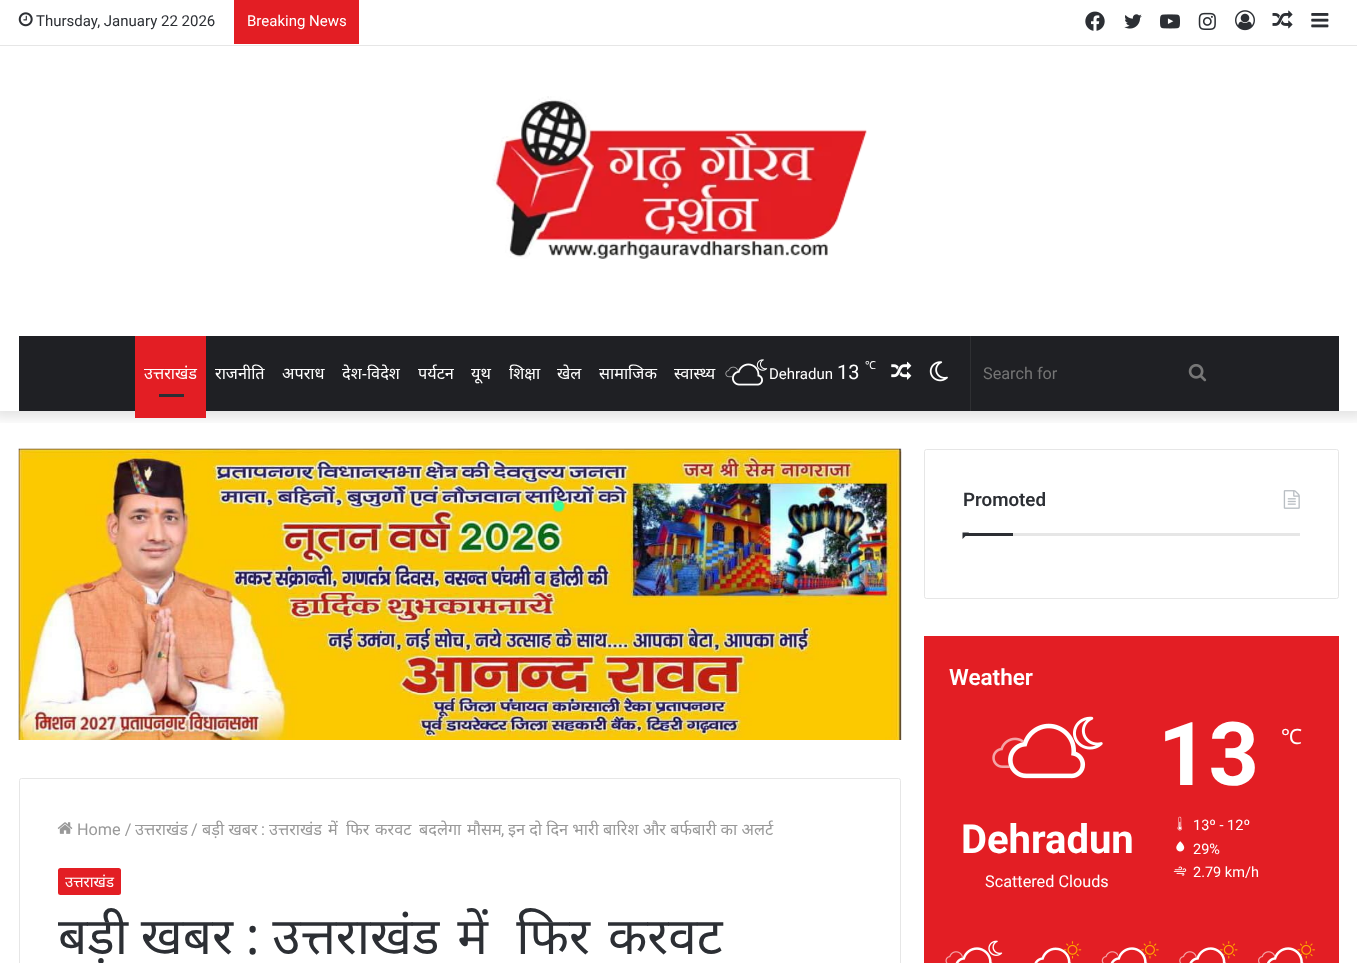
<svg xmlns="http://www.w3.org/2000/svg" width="1357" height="963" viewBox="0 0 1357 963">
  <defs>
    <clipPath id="clip1"><rect x="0" y="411" width="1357" height="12"/></clipPath>
  </defs>
  <rect width="100%" height="100%" fill="rgb(255,255,255)"/>
  <g clip-path="url(#clip1)">
    <rect x="-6" y="-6" width="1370" height="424" fill="rgba(0,0,0,0.1)" filter="blur(6px)"/>
  </g>
  <rect x="0" y="45" width="1357" height="1" fill="rgb(230,230,230)"/>
  <image x="18" y="12" width="15" height="15" href="pic1.png"/>
  <text x="36" y="26" font-family="Roboto" font-size="15" fill="rgb(44,47,52)">Thursday, January 22 2026</text>
  <rect x="234" y="0" width="125" height="44" fill="rgb(227,30,36)"/>
  <text x="247" y="26" font-family="Roboto" font-size="15" fill="rgb(255,255,255)">Breaking News</text>
  <image x="1085" y="11" width="20" height="20" href="pic2.png"/>
  <image x="1124" y="14" width="18" height="15" href="pic3.png"/>
  <image x="1160" y="14" width="20" height="15" href="pic4.png"/>
  <image x="1198" y="12" width="18" height="18" href="pic5.png"/>
  <image x="1235" y="10" width="20" height="21" href="pic6.png"/>
  <image x="1272" y="10" width="21" height="19" href="pic7.png"/>
  <image x="1311" y="13" width="18" height="15" href="pic8.png"/>
  <image x="491" y="96" width="376" height="163" href="pic9.png"/>
  <rect x="19" y="336" width="1320" height="75" fill="rgb(31,32,36)"/>
  <rect x="135" y="336" width="71" height="82" fill="rgb(227,30,36)"/>
  <text x="144" y="379" font-family="Noto Sans" font-size="16.25" fill="rgb(255,255,255)">उत्तराखंड</text>
  <rect x="159" y="394" width="25" height="3" fill="rgb(44,47,52)"/>
  <g font-family="Noto Sans" font-size="16.25" fill="rgb(255,255,255)">
    <text x="215" y="379">राजनीति</text>
    <text x="282" y="379">अपराध</text>
    <text x="342" y="379">देश-विदेश</text>
    <text x="418" y="379">पर्यटन</text>
    <text x="471" y="379">यूथ</text>
    <text x="509" y="379">शिक्षा</text>
    <text x="557" y="379">खेल</text>
    <text x="599" y="379">सामाजिक</text>
    <text x="674" y="379">स्वास्थ्य</text>
  </g>
  <image x="756" y="359" width="12" height="12" href="pic10.png"/>
  <image x="725" y="366" width="14" height="12" href="pic12.png"/>
  <image x="732" y="368" width="26" height="10" href="pic13.png"/>
  <image x="732" y="363" width="31" height="23" href="pic11.png"/>
  <text x="769" y="379" font-family="Roboto" font-size="15" fill="rgb(255,255,255)">Dehradun</text>
  <text x="837" y="379" font-family="Roboto" font-size="20" fill="rgb(255,255,255)">13</text>
  <text x="865" y="369" font-family="Noto Sans" font-size="11" fill="rgb(255,255,255)">℃</text>
  <image x="891" y="361" width="21" height="19" href="pic14.png"/>
  <image x="929" y="361" width="19" height="21" href="pic15.png"/>
  <rect x="970" y="336" width="1" height="75" fill="rgb(47,48,51)"/>
  <text x="983" y="379" font-family="Roboto" font-size="16.25" fill="rgb(117,117,117)">Search for</text>
  <image x="1188" y="364" width="19" height="18" href="pic16.png"/>
  <image x="18" y="448" width="884" height="292" href="pic17.png"/>
  <rect x="19.5" y="778.5" width="881" height="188" rx="2" fill="none" stroke="rgb(230,230,230)"/>
  <image x="57" y="822" width="16" height="12" href="pic18.png"/>
  <text x="77" y="835" font-family="Roboto" font-size="16.25" fill="rgb(153,153,153)">Home /</text>
  <text x="135" y="835" font-family="Noto Sans" font-size="16.25" fill="rgb(153,153,153)">उत्तराखंड</text>
  <text x="191" y="835" font-family="Roboto" font-size="16.25" fill="rgb(153,153,153)">/</text>
  <text x="202" y="835" font-family="Noto Sans" font-size="16.25" fill="rgb(153,153,153)">बड़ी खबर</text>
  <text x="261" y="835" font-family="Roboto" font-size="16.25" fill="rgb(153,153,153)">:</text>
  <g font-family="Noto Sans" font-size="16.25" fill="rgb(153,153,153)">
    <text x="269" y="835">उत्तराखंड</text>
    <text x="328" y="835">में</text>
    <text x="346" y="835">फिर</text>
    <text x="375" y="835">करवट</text>
    <text x="419" y="835">बदलेगा</text>
    <text x="467" y="835">मौसम</text>
  </g>
  <text x="501" y="835" font-family="Roboto" font-size="16.25" fill="rgb(153,153,153)">,</text>
  <text x="508" y="835" font-family="Noto Sans" font-size="16.25" fill="rgb(153,153,153)">इन दो दिन भारी बारिश और बर्फबारी का अलर्ट</text>
  <rect x="58" y="868" width="63" height="27" rx="2.5" fill="rgb(227,30,36)"/>
  <text x="65" y="887" font-family="Noto Sans" font-size="15" fill="rgb(255,255,255)">उत्तराखंड</text>
  <text x="58" y="954" word-spacing="-0.5" font-family="Noto Sans" font-size="51.25" fill="rgb(44,47,52)">बड़ी खबर : उत्तराखंड  में    फिर  करवट</text>
  <rect x="924.5" y="449.5" width="414" height="149" rx="2" fill="none" stroke="rgb(230,230,230)"/>
  <rect x="1013" y="533" width="287" height="3" fill="rgb(230,230,230)"/>
  <text x="963" y="506" font-family="Roboto" font-size="18.75" font-weight="600" fill="rgb(44,47,52)">Promoted</text>
  <image x="1283" y="490" width="17" height="19" href="pic19.png"/>
  <path d="M962.5 532.5H969L962.5 539Z" fill="rgb(44,47,52)"/>
  <rect x="963" y="533" width="50" height="3" fill="rgb(44,47,52)"/>
  <rect x="924" y="636" width="415" height="327" fill="rgb(227,30,36)"/>
  <text x="949" y="685" font-family="Roboto" font-size="22.5" font-weight="600" fill="rgb(255,255,255)">Weather</text>
  <image x="1073" y="716" width="30" height="34" href="pic21.png"/>
  <image x="992" y="737" width="32" height="31" href="pic22.png"/>
  <image x="1008" y="740" width="28" height="28" href="pic23.png"/>
  <image x="1008" y="723" width="78" height="56" href="pic20.png"/>
  <text x="961" y="853" font-family="Roboto" font-size="40" font-weight="bold" fill="rgb(255,255,255)">Dehradun</text>
  <text x="985" y="887" font-family="Roboto" font-size="16.25" fill="rgb(255,255,255)">Scattered Clouds</text>
  <text x="1158" y="785" font-family="Roboto" font-size="88" font-weight="bold" fill="rgb(255,255,255)">13</text>
  <text x="1281" y="744" font-family="Noto Sans" font-size="21" fill="rgb(255,255,255)">℃</text>
  <image x="1177" y="816" width="6" height="15" href="pic24.png"/>
  <text x="1193" y="830" font-family="Roboto" font-size="14.5" fill="rgb(255,255,255)">13º - 12º</text>
  <image x="1176" y="841" width="9" height="11" href="pic25.png"/>
  <text x="1193" y="854" font-family="Roboto" font-size="14.5" fill="rgb(255,255,255)">29%</text>
  <image x="1173" y="866" width="14" height="10" href="pic26.png"/>
  <text x="1193" y="877" font-family="Roboto" font-size="14.5" fill="rgb(255,255,255)">2.79 km/h</text>
  <image x="945" y="951" width="18" height="12" href="pic27.png"/>
  <image x="988" y="940" width="15" height="16" href="pic29.png"/>
  <rect x="961" y="957" width="2" height="6" fill="rgb(227,30,36)"/>
  <image x="955" y="947" width="38" height="16" href="pic28.png"/>
  <image x="1063" y="941" width="19" height="18" href="pic31.png"/>
  <image x="1066" y="955" width="1" height="2" href="pic32.png"/>
  <image x="1034" y="947" width="38" height="16" href="pic30.png"/>
  <image x="1101" y="951" width="17" height="12" href="pic33.png"/>
  <image x="1141" y="941" width="18" height="18" href="pic35.png"/>
  <rect x="1143" y="954" width="2" height="3" fill="rgb(227,30,36)"/>
  <image x="1110" y="947" width="38" height="16" href="pic34.png"/>
  <image x="1179" y="951" width="18" height="12" href="pic36.png"/>
  <image x="1220" y="941" width="18" height="18" href="pic38.png"/>
  <image x="1195" y="954" width="29" height="9" href="pic39.png"/>
  <image x="1189" y="947" width="38" height="16" href="pic37.png"/>
  <image x="1297" y="941" width="18" height="18" href="pic41.png"/>
  <image x="1258" y="951" width="18" height="12" href="pic42.png"/>
  <image x="1274" y="954" width="28" height="9" href="pic43.png"/>
  <image x="1267" y="947" width="37" height="16" href="pic40.png"/>
</svg>
